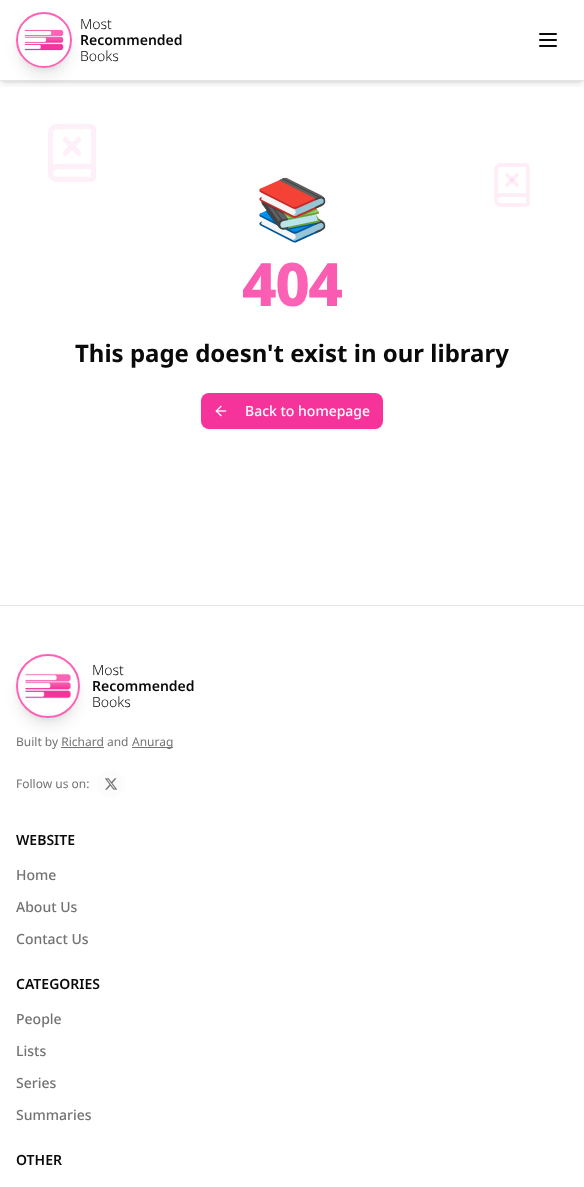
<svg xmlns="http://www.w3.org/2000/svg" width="584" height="1187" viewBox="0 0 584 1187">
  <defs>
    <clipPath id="clip1"><rect x="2" y="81" width="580" height="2"/></clipPath>
    <clipPath id="clip2"><rect x="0" y="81" width="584" height="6"/></clipPath>
    <clipPath id="clip3"><path d="M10 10H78V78H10ZM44 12C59.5 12 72 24.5 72 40C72 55.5 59.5 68 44 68C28.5 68 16 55.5 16 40C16 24.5 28.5 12 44 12Z" clip-rule="evenodd"/></clipPath>
    <clipPath id="clip4"><path d="M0 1H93V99H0ZM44 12C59.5 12 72 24.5 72 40C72 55.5 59.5 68 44 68C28.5 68 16 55.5 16 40C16 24.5 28.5 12 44 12Z" clip-rule="evenodd"/></clipPath>
    <linearGradient id="g1" gradientUnits="userSpaceOnUse" x1="75" y1="283" x2="509" y2="283"><stop offset="0" stop-color="rgb(246,51,154)"/><stop offset="0.5" stop-color="rgb(251,100,182)"/><stop offset="1" stop-color="rgb(246,51,154)"/></linearGradient>
    <clipPath id="clip5"><path d="M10 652H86V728H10ZM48 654C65.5 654 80 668.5 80 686C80 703.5 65.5 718 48 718C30.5 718 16 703.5 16 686C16 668.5 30.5 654 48 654Z" clip-rule="evenodd"/></clipPath>
    <clipPath id="clip6"><path d="M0 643H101V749H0ZM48 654C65.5 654 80 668.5 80 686C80 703.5 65.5 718 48 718C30.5 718 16 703.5 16 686C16 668.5 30.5 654 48 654Z" clip-rule="evenodd"/></clipPath>
  </defs>
  <rect width="100%" height="100%" fill="rgb(255,255,255)"/>
  <g clip-path="url(#clip1)">
    <rect x="2" y="4" width="580" height="77" fill="rgba(0,0,0,0.1)" filter="blur(2px)"/>
  </g>
  <g clip-path="url(#clip2)">
    <rect x="1" y="5" width="582" height="79" fill="rgba(0,0,0,0.1)" filter="blur(3px)"/>
  </g>
  <rect x="0" y="80" width="584" height="1" fill="rgb(229,229,229)"/>
  <g clip-path="url(#clip3)">
    <rect x="20" y="20" width="48" height="48" rx="24" fill="rgba(0,0,0,0.1)" filter="blur(3px)"/>
  </g>
  <g clip-path="url(#clip4)">
    <rect x="19" y="25" width="50" height="50" rx="25" fill="rgba(0,0,0,0.1)" filter="blur(7.5px)"/>
  </g>
  <circle cx="44" cy="40" r="27" fill="none" stroke="rgb(251,100,182)" stroke-width="2"/>
  <image x="24" y="29" width="40" height="22" href="pic1.png"/>
  <text x="80" y="29" font-family="Noto Sans" font-size="14" font-weight="300" fill="rgb(10,10,10)">Most</text>
  <text x="80" y="45" font-family="Noto Sans" font-size="14" font-weight="600" fill="rgb(10,10,10)">Recommended</text>
  <text x="80" y="61" font-family="Noto Sans" font-size="14" font-weight="300" fill="rgb(10,10,10)">Books</text>
  <image x="539" y="33" width="18" height="14" href="pic2.png"/>
  <path d="M78.5 139.5L65.5 153M50.5 173V133C50.5 129.5 53.5 126.5 57.5 126.5H90.5C92 126.5 93.5 127.5 93.5 129V177C93.5 178.5 92 179.5 90.5 179.5H57.5C53.5 179.5 50.5 176.5 50.5 173C50.5 169.5 53.5 166.5 57.5 166.5H93.5M65.5 139.5L78.5 153" fill="none" stroke="rgb(254,240,248)" stroke-width="5.3" stroke-linecap="round" stroke-linejoin="round"/>
  <text x="255" y="230" font-family="Noto Color Emoji" font-size="60" fill="rgb(10,10,10)">📚</text>
  <text x="242" y="306" font-family="Noto Sans" font-size="60" font-weight="800" letter-spacing="-1.5" fill="url(#g1)">404</text>
  <text x="75" y="362" font-family="Noto Sans" font-size="24" font-weight="bold" fill="rgb(10,10,10)">This page doesn't exist in our library</text>
  <rect x="201" y="394" width="182" height="36" rx="8" fill="rgba(0,0,0,0.05)" filter="blur(1px)"/>
  <rect x="201" y="393" width="182" height="36" rx="8" fill="rgb(246,51,154)"/>
  <image x="215" y="405" width="12" height="12" href="pic3.png"/>
  <text x="245" y="416" font-family="Noto Sans" font-size="14" font-weight="500" fill="rgb(255,255,255)">Back to homepage</text>
  <image x="494" y="163" width="36" height="44" href="pic4.png"/>
  <rect x="0" y="605" width="584" height="1" fill="rgb(229,229,229)"/>
  <g clip-path="url(#clip5)">
    <rect x="20" y="662" width="56" height="56" rx="28" fill="rgba(0,0,0,0.1)" filter="blur(3px)"/>
  </g>
  <g clip-path="url(#clip6)">
    <rect x="19" y="667" width="58" height="58" rx="29" fill="rgba(0,0,0,0.1)" filter="blur(7.5px)"/>
  </g>
  <circle cx="48" cy="686" r="31" fill="none" stroke="rgb(251,100,182)" stroke-width="2"/>
  <image x="25" y="673" width="46" height="26" href="pic5.png"/>
  <text x="92" y="675" font-family="Noto Sans" font-size="14" font-weight="300" fill="rgb(10,10,10)">Most</text>
  <text x="92" y="691" font-family="Noto Sans" font-size="14" font-weight="600" fill="rgb(10,10,10)">Recommended</text>
  <text x="92" y="707" font-family="Noto Sans" font-size="14" font-weight="300" fill="rgb(10,10,10)">Books</text>
  <text x="16" y="746" font-family="Noto Sans" font-size="12" fill="rgb(115,115,115)">Built by Richard and</text>
  <rect x="132" y="747" width="41" height="1" fill="rgb(115,115,115)"/>
  <text x="132" y="746" font-family="Noto Sans" font-size="12" fill="rgb(115,115,115)">Anurag</text>
  <rect x="61" y="747" width="43" height="1" fill="rgb(115,115,115)"/>
  <text x="16" y="788" font-family="Noto Sans" font-size="12" fill="rgb(115,115,115)">Follow us on:</text>
  <circle cx="111" cy="784" r="14" fill="rgb(252,252,252)"/>
  <image x="104" y="778" width="14" height="12" href="pic6.png"/>
  <text x="16" y="845" font-family="Noto Sans" font-size="14" font-weight="600" fill="rgb(10,10,10)">WEBSITE</text>
  <g font-family="Noto Sans" font-size="14" font-weight="500" fill="rgb(115,115,115)">
    <text x="16" y="880">Home</text>
    <text x="16" y="912">About Us</text>
    <text x="16" y="944">Contact Us</text>
  </g>
  <text x="16" y="989" font-family="Noto Sans" font-size="14" font-weight="600" fill="rgb(10,10,10)">CATEGORIES</text>
  <g font-family="Noto Sans" font-size="14" font-weight="500" fill="rgb(115,115,115)">
    <text x="16" y="1024">People</text>
    <text x="16" y="1056">Lists</text>
    <text x="16" y="1088">Series</text>
    <text x="16" y="1120">Summaries</text>
  </g>
  <text x="16" y="1165" font-family="Noto Sans" font-size="14" font-weight="600" fill="rgb(10,10,10)">OTHER</text>
</svg>
